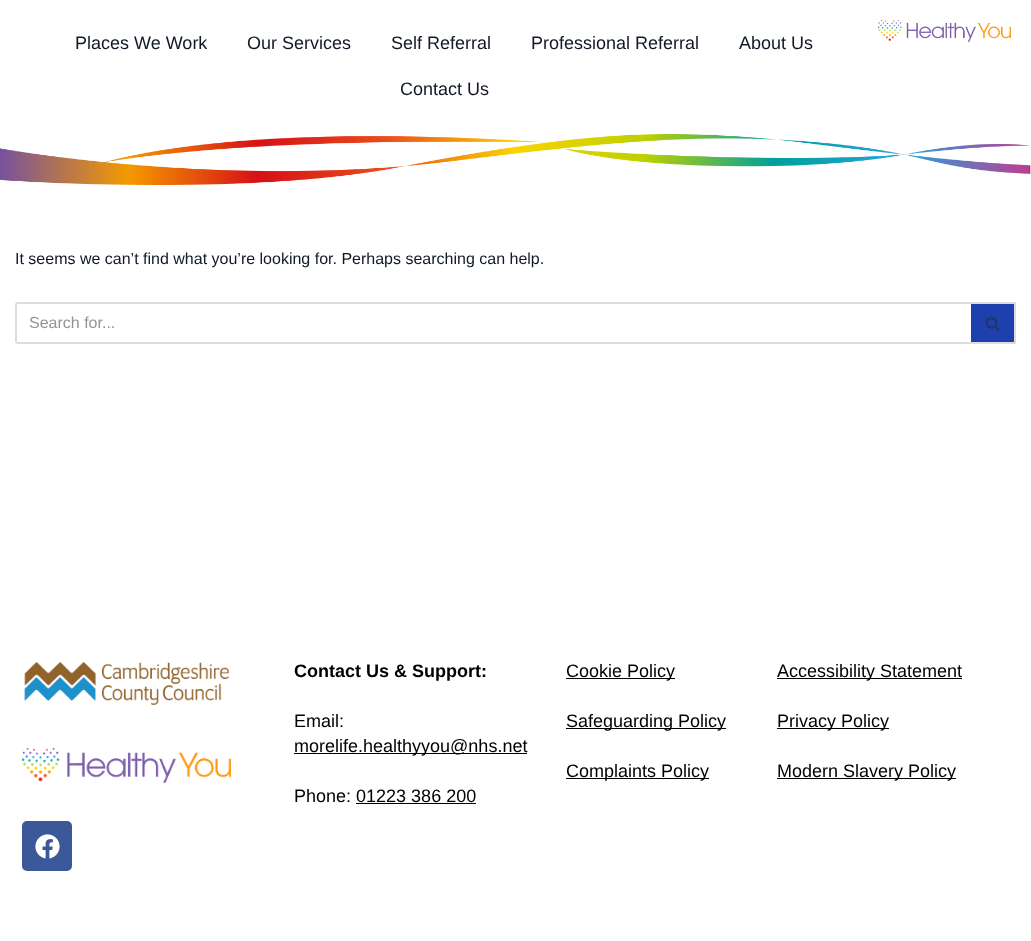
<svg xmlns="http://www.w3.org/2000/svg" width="1031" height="941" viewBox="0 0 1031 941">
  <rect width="100%" height="100%" fill="rgb(255,255,255)"/>
  <image x="0" y="134" width="1031" height="51" href="pic1.png"/>
  <image x="878" y="20" width="133" height="22" href="pic2.png"/>
  <g font-family="Liberation Sans" font-size="18" fill="rgb(17,24,39)">
    <text x="75" y="49">Places We Work</text>
    <text x="247" y="49">Our Services</text>
    <text x="391" y="49">Self Referral</text>
    <text x="531" y="49">Professional Referral</text>
    <text x="739" y="49">About Us</text>
    <text x="400" y="95">Contact Us</text>
  </g>
  <text x="15" y="264" font-family="Liberation Sans" font-size="16" fill="rgb(17,24,39)">It seems we can’t find what you’re looking for. Perhaps searching can help.</text>
  <path d="M18 302H971V344H18C16 344 15 343 15 341V305C15 303 16 302 18 302ZM18 304H971V342H18C17 342 17 342 17 341V305C17 304 17 304 18 304Z" fill="rgb(221,221,221)" fill-rule="evenodd"/>
  <text x="29" y="328" font-family="Liberation Sans" font-size="16" fill="rgb(147,147,147)">Search for...</text>
  <path d="M971 302H1013C1014.5 302 1016 303.5 1016 305V341C1016 342.5 1014.5 344 1013 344H971Z" fill="rgb(30,64,175)"/>
  <path d="M971 302H1013C1015 302 1016 303 1016 305V341C1016 343 1015 344 1013 344H971ZM971 304H1013C1014 304 1014 304 1014 305V341C1014 342 1014 342 1013 342H971Z" fill="rgb(221,221,221)" fill-rule="evenodd"/>
  <image x="985" y="317" width="15" height="14" href="pic3.png"/>
  <image x="24" y="662" width="206" height="43" href="pic4.png"/>
  <image x="22" y="748" width="209" height="35" href="pic5.png"/>
  <rect x="22" y="821" width="50" height="50" rx="5" fill="rgb(59,89,152)"/>
  <image x="35" y="834" width="25" height="25" href="pic6.png"/>
  <text x="294" y="677" font-family="Liberation Sans" font-size="18" font-weight="bold" fill="rgb(0,0,0)">Contact Us &amp; Support:</text>
  <text x="294" y="727" font-family="Liberation Sans" font-size="18" fill="rgb(0,0,0)">Email:</text>
  <rect x="294" y="753" width="233" height="1" fill="rgb(0,0,0)"/>
  <g font-family="Liberation Sans" font-size="18" fill="rgb(0,0,0)">
    <text x="294" y="752">morelife.healthyyou@nhs.net</text>
    <text x="294" y="802">Phone: 01223 386 200</text>
  </g>
  <rect x="356" y="803" width="120" height="1" fill="rgb(0,0,0)"/>
  <rect x="566" y="678" width="109" height="1" fill="rgb(0,0,0)"/>
  <text x="566" y="677" font-family="Liberation Sans" font-size="18" fill="rgb(0,0,0)">Cookie Policy</text>
  <rect x="566" y="728" width="160" height="1" fill="rgb(0,0,0)"/>
  <text x="566" y="727" font-family="Liberation Sans" font-size="18" fill="rgb(0,0,0)">Safeguarding Policy</text>
  <rect x="566" y="778" width="143" height="1" fill="rgb(0,0,0)"/>
  <text x="566" y="777" font-family="Liberation Sans" font-size="18" fill="rgb(0,0,0)">Complaints Policy</text>
  <rect x="777" y="678" width="185" height="1" fill="rgb(0,0,0)"/>
  <text x="777" y="677" font-family="Liberation Sans" font-size="18" fill="rgb(0,0,0)">Accessibility Statement</text>
  <rect x="777" y="728" width="112" height="1" fill="rgb(0,0,0)"/>
  <text x="777" y="727" font-family="Liberation Sans" font-size="18" fill="rgb(0,0,0)">Privacy Policy</text>
  <rect x="777" y="778" width="179" height="1" fill="rgb(0,0,0)"/>
  <text x="777" y="777" font-family="Liberation Sans" font-size="18" fill="rgb(0,0,0)">Modern Slavery Policy</text>
</svg>
